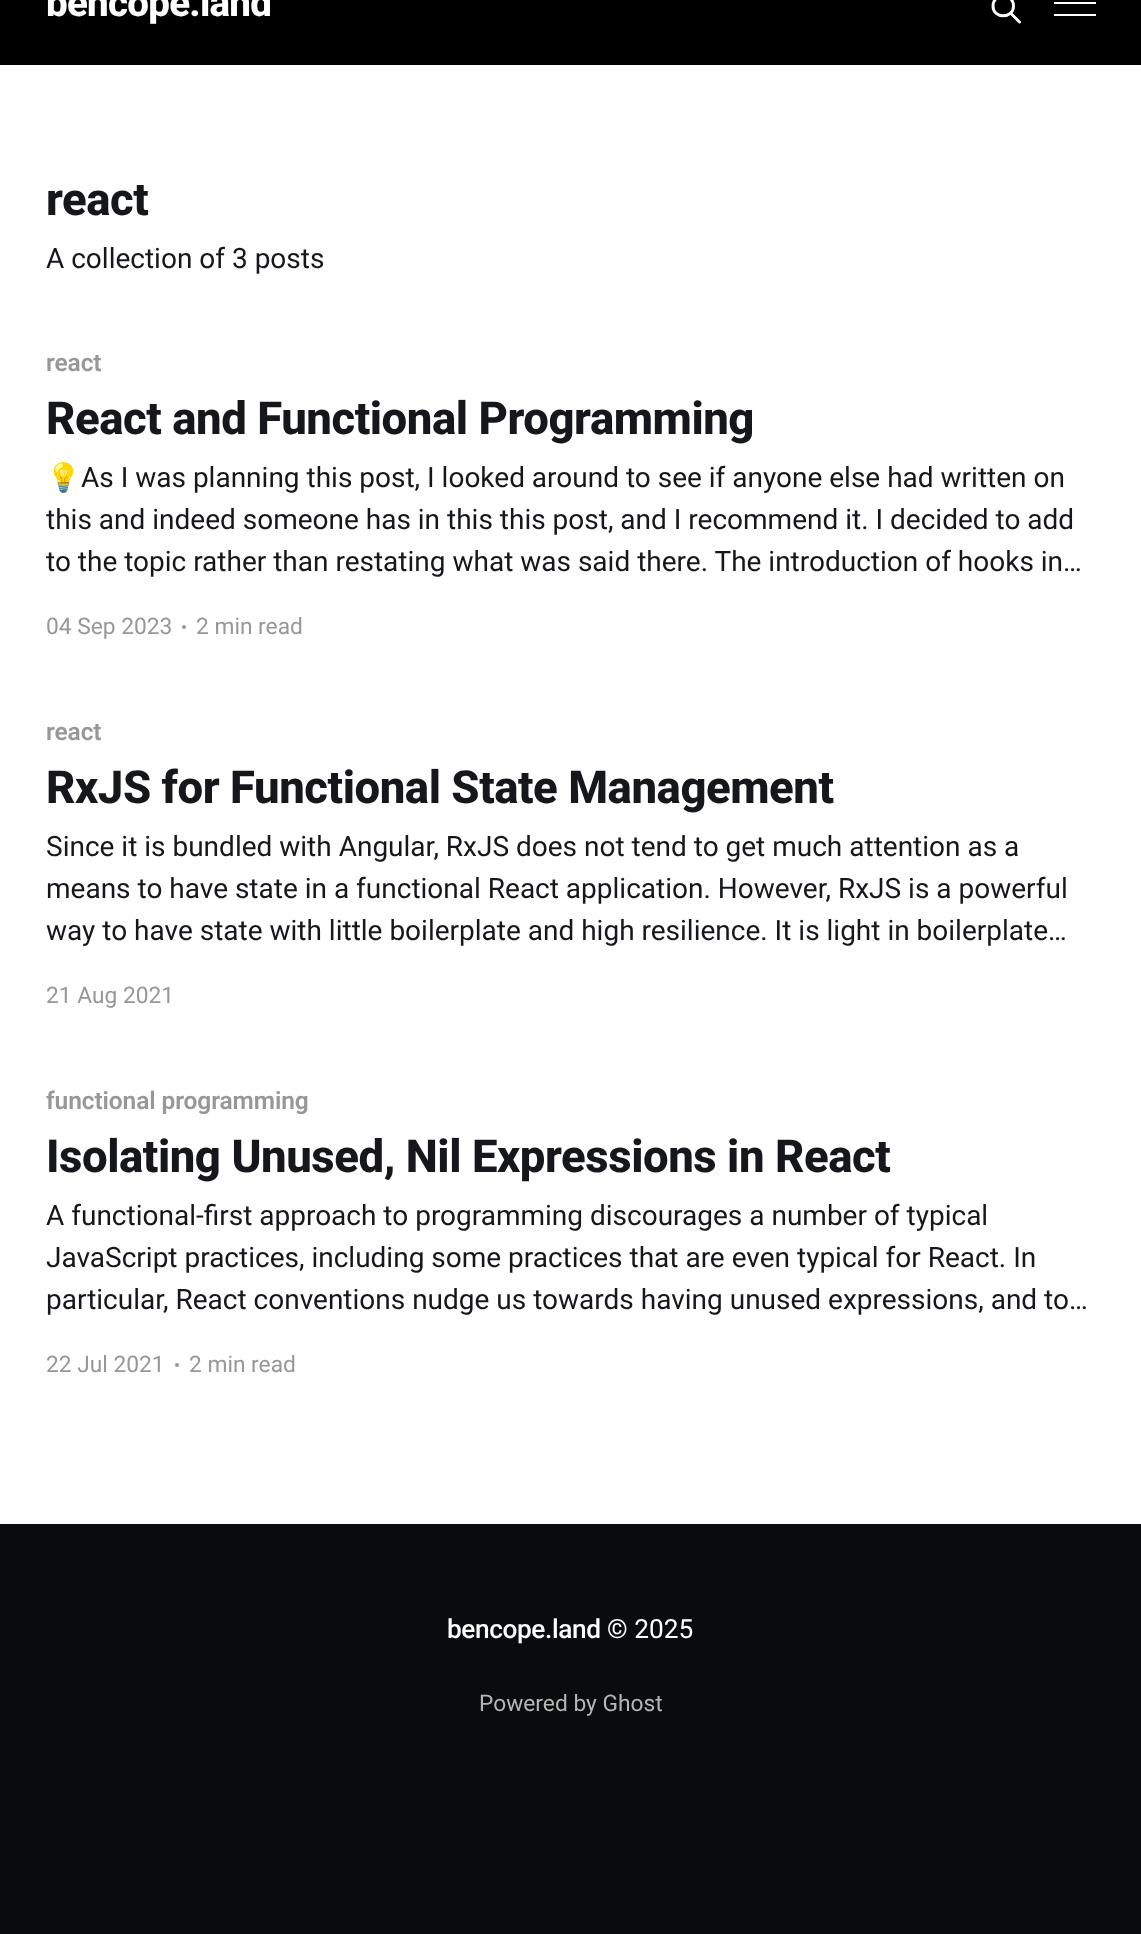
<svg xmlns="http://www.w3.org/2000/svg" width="1141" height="1934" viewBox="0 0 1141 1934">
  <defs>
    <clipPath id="clip1"><rect x="46" y="457" width="1050" height="126"/></clipPath>
  </defs>
  <rect width="100%" height="100%" fill="rgb(255,255,255)"/>
  <rect x="0" y="0" width="1141" height="65" fill="rgb(0,0,0)"/>
  <text x="46" y="16" font-family="Roboto" font-size="38.5" font-weight="800" letter-spacing="-0.75" fill="rgb(255,255,255)">bencope.land</text>
  <path d="M1019.5 22L1010.5 13M1013.5 6C1013.5 19 993 19 993 6C993-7.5 1013.5-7.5 1013.5 6Z" fill="none" stroke="rgb(255,255,255)" stroke-width="2.9" stroke-linecap="round" stroke-linejoin="round"/>
  <rect x="1054" y="2" width="42" height="2" fill="rgb(255,255,255)"/>
  <rect x="1054" y="14" width="42" height="2" fill="rgb(255,255,255)"/>
  <text x="46" y="215" font-family="Roboto" font-size="45.5" font-weight="800" letter-spacing="-0.45" fill="rgb(21,23,26)">react</text>
  <text x="46" y="268" font-family="Roboto" font-size="28" fill="rgb(21,23,26)">A collection of 3 posts</text>
  <text x="46" y="371" font-family="Roboto" font-size="24.5" font-weight="600" letter-spacing="-0.1" fill="rgb(151,151,151)">react</text>
  <text x="46" y="434" font-family="Roboto" font-size="45.5" font-weight="800" letter-spacing="-0.45" fill="rgb(21,23,26)">React and Functional Programming</text>
  <g clip-path="url(#clip1)">
    <text x="46" y="487" font-family="Noto Color Emoji" font-size="28" fill="rgb(21,23,26)">💡</text>
  </g>
  <g font-family="Roboto" font-size="28" fill="rgb(21,23,26)">
    <text x="81" y="487">As I was planning this post, I looked around to see if anyone else had written on</text>
    <text>
      <tspan x="46" y="529">this and indeed someone has in this this post, and I recommend it. I decided to add</tspan>
      <tspan x="46" y="571">to the topic rather than restating what was said there. The introduction of hooks in…</tspan>
    </text>
  </g>
  <text x="46" y="634" font-family="Roboto" font-size="22.75" fill="rgb(151,151,151)">04 Sep 2023</text>
  <circle cx="184" cy="627" r="2" fill="rgb(151,151,151)"/>
  <text x="196" y="634" font-family="Roboto" font-size="22.75" fill="rgb(151,151,151)">2 min read</text>
  <text x="46" y="740" font-family="Roboto" font-size="24.5" font-weight="600" letter-spacing="-0.1" fill="rgb(151,151,151)">react</text>
  <text x="46" y="803" font-family="Roboto" font-size="45.5" font-weight="800" letter-spacing="-0.45" fill="rgb(21,23,26)">RxJS for Functional State Management</text>
  <g font-family="Roboto" font-size="28" fill="rgb(21,23,26)">
    <text>
      <tspan x="46" y="856">Since it is bundled with Angular, RxJS does not tend to get much attention as a</tspan>
      <tspan x="46" y="898">means to have state in a functional React application. However, RxJS is a powerful</tspan>
      <tspan x="46" y="940">way to have state with little boilerplate and high resilience. It is light in boilerplate…</tspan>
    </text>
  </g>
  <text x="46" y="1003" font-family="Roboto" font-size="22.75" fill="rgb(151,151,151)">21 Aug 2021</text>
  <text x="46" y="1109" font-family="Roboto" font-size="24.5" font-weight="600" letter-spacing="-0.1" fill="rgb(151,151,151)">functional programming</text>
  <text x="46" y="1172" font-family="Roboto" font-size="45.5" font-weight="800" letter-spacing="-0.45" fill="rgb(21,23,26)">Isolating Unused, Nil Expressions in React</text>
  <g font-family="Roboto" font-size="28" fill="rgb(21,23,26)">
    <text>
      <tspan x="46" y="1225">A functional-first approach to programming discourages a number of typical</tspan>
      <tspan x="46" y="1267">JavaScript practices, including some practices that are even typical for React. In</tspan>
      <tspan x="46" y="1309">particular, React conventions nudge us towards having unused expressions, and to…</tspan>
    </text>
  </g>
  <text x="46" y="1372" font-family="Roboto" font-size="22.75" fill="rgb(151,151,151)">22 Jul 2021</text>
  <circle cx="177" cy="1365" r="2" fill="rgb(151,151,151)"/>
  <text x="189" y="1372" font-family="Roboto" font-size="22.75" fill="rgb(151,151,151)">2 min read</text>
  <rect x="0" y="1524" width="1141" height="410" fill="rgb(10,11,12)"/>
  <text x="447" y="1638" font-family="Roboto" font-size="26.25" font-weight="500" letter-spacing="-0.4" fill="rgb(255,255,255)">bencope.land</text>
  <text x="607" y="1638" font-family="Roboto" font-size="26.25" fill="rgb(255,255,255)">© 2025</text>
  <text x="479" y="1711" font-family="Roboto" font-size="22.75" fill="rgb(182,182,182)">Powered by Ghost</text>
</svg>
